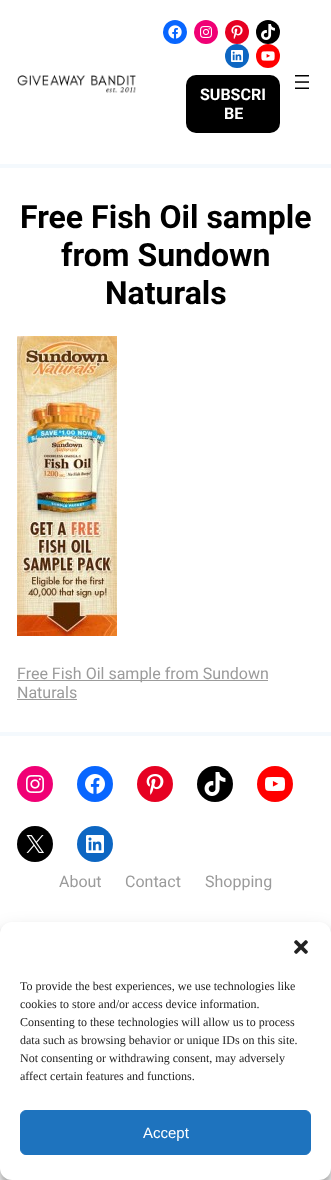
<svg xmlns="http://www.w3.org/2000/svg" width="331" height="1180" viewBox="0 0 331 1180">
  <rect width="100%" height="100%" fill="rgb(255,255,255)"/>
  <image x="17" y="75" width="119" height="18" href="pic1.png"/>
  <image x="295" y="75" width="14" height="14" href="pic2.png"/>
  <circle cx="175" cy="32" r="12" fill="rgb(8,102,255)"/>
  <image x="168" y="25" width="14" height="14" href="pic3.png"/>
  <circle cx="206" cy="32" r="12" fill="rgb(240,0,117)"/>
  <image x="200" y="26" width="12" height="12" href="pic4.png"/>
  <circle cx="237" cy="32" r="12" fill="rgb(230,1,34)"/>
  <image x="231" y="25" width="12" height="14" href="pic5.png"/>
  <circle cx="268" cy="32" r="12" fill="rgb(0,0,0)"/>
  <image x="261" y="24" width="14" height="16" href="pic6.png"/>
  <circle cx="237" cy="56" r="12" fill="rgb(13,102,194)"/>
  <image x="231" y="50" width="12" height="12" href="pic7.png"/>
  <circle cx="268" cy="56" r="12" fill="rgb(255,0,0)"/>
  <image x="261" y="51" width="14" height="10" href="pic8.png"/>
  <rect x="186" y="75" width="94" height="58" rx="10" fill="rgb(0,0,0)"/>
  <g font-family="Roboto" font-size="16" font-weight="bold" fill="rgb(255,255,255)">
    <text x="200" y="100">SUBSCRI</text>
    <text x="224" y="119">BE</text>
  </g>
  <rect x="0" y="164" width="331" height="4" fill="rgb(244,249,253)"/>
  <g font-family="Roboto" font-size="32" font-weight="bold" fill="rgb(0,0,0)">
    <text x="20" y="228">Free Fish Oil sample</text>
    <text x="61" y="266">from Sundown</text>
    <text x="105" y="304">Naturals</text>
  </g>
  <image x="17" y="336" width="100" height="300" href="pic9.png"/>
  <rect x="17" y="680" width="251" height="1" fill="rgb(155,155,155)"/>
  <g font-family="Roboto" font-size="16" fill="rgb(155,155,155)">
    <text>
      <tspan x="17" y="679">Free Fish Oil sample from Sundown</tspan>
      <tspan x="17" y="698">Naturals</tspan>
    </text>
  </g>
  <rect x="17" y="699" width="60" height="1" fill="rgb(155,155,155)"/>
  <rect x="0" y="732" width="331" height="4" fill="rgb(244,249,253)"/>
  <circle cx="35" cy="784" r="18" fill="rgb(240,0,117)"/>
  <image x="26" y="775" width="18" height="18" href="pic10.png"/>
  <circle cx="95" cy="784" r="18" fill="rgb(8,102,255)"/>
  <image x="85" y="774" width="20" height="20" href="pic11.png"/>
  <circle cx="155" cy="784" r="18" fill="rgb(230,1,34)"/>
  <image x="146" y="774" width="18" height="21" href="pic12.png"/>
  <circle cx="215" cy="784" r="18" fill="rgb(0,0,0)"/>
  <image x="204" y="772" width="22" height="24" href="pic13.png"/>
  <circle cx="275" cy="784" r="18" fill="rgb(255,0,0)"/>
  <image x="265" y="777" width="20" height="14" href="pic14.png"/>
  <circle cx="35" cy="844" r="18" fill="rgb(0,0,0)"/>
  <image x="26" y="835" width="18" height="18" href="pic15.png"/>
  <circle cx="95" cy="844" r="18" fill="rgb(13,102,194)"/>
  <image x="86" y="835" width="18" height="18" href="pic16.png"/>
  <g font-family="Roboto" font-size="16" fill="rgb(155,155,155)">
    <text x="59" y="887">About</text>
    <text x="125" y="887">Contact</text>
    <text x="205" y="887">Shopping</text>
  </g>
  <rect x="0" y="928" width="331" height="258" rx="12" fill="rgba(0,0,0,0.23)" filter="blur(3px)"/>
  <rect x="0" y="932" width="331" height="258" rx="12" fill="rgba(0,0,0,0.19)" filter="blur(10px)"/>
  <rect x="0" y="922" width="331" height="258" rx="12" fill="rgb(255,255,255)"/>
  <image x="294" y="940" width="14" height="14" href="pic17.png"/>
  <g font-family="Liberation Serif" font-size="12" fill="rgb(34,34,34)">
    <text>
      <tspan x="20" y="990">To provide the best experiences, we use technologies like</tspan>
      <tspan x="20" y="1008">cookies to store and/or access device information.</tspan>
      <tspan x="20" y="1026">Consenting to these technologies will allow us to process</tspan>
      <tspan x="20" y="1044">data such as browsing behavior or unique IDs on this site.</tspan>
      <tspan x="20" y="1062">Not consenting or withdrawing consent, may adversely</tspan>
      <tspan x="20" y="1080">affect certain features and functions.</tspan>
    </text>
  </g>
  <rect x="20.5" y="1110.5" width="290" height="44" rx="5.5" fill="rgb(30,115,190)" stroke="rgb(30,115,190)"/>
  <text x="143" y="1138" font-family="Liberation Sans" font-size="15" fill="rgb(255,255,255)">Accept</text>
</svg>
